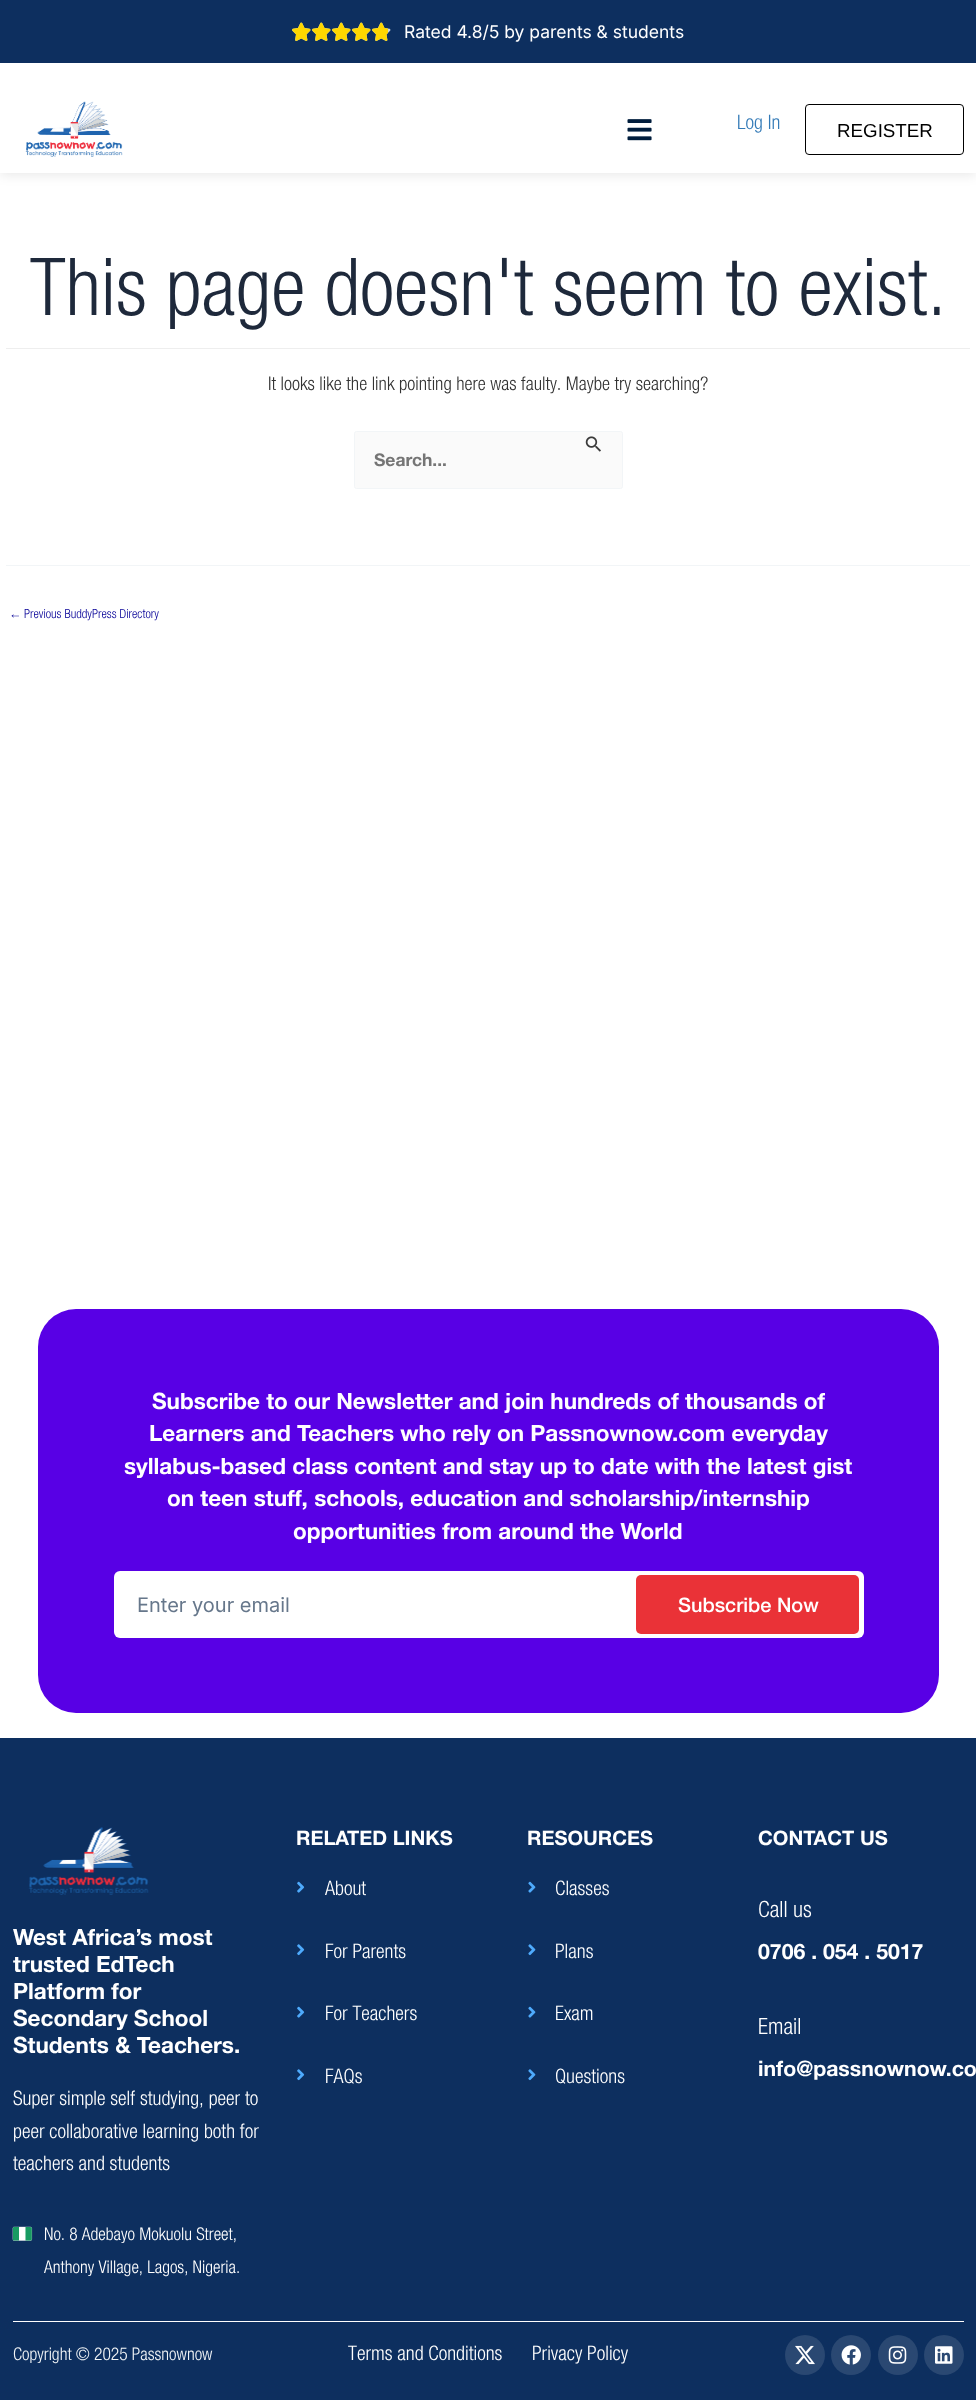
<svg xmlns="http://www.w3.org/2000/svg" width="976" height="2400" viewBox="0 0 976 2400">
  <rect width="100%" height="100%" fill="rgb(255,255,255)"/>
  <rect x="0" y="3" width="976" height="172" fill="rgba(0,0,0,0.09)" filter="blur(6px)"/>
  <rect x="0" y="63" width="976" height="110" fill="rgb(255,255,255)"/>
  <rect x="0" y="0" width="976" height="63" fill="rgb(13,47,95)"/>
  <image x="292" y="22" width="19" height="19" href="pic1.png"/>
  <image x="292" y="22" width="19" height="19" href="pic2.png"/>
  <image x="312" y="22" width="19" height="19" href="pic1.png"/>
  <image x="312" y="22" width="19" height="19" href="pic2.png"/>
  <image x="332" y="22" width="19" height="19" href="pic1.png"/>
  <image x="332" y="22" width="19" height="19" href="pic2.png"/>
  <image x="352" y="22" width="19" height="19" href="pic1.png"/>
  <image x="352" y="22" width="19" height="19" href="pic2.png"/>
  <image x="372" y="22" width="19" height="19" href="pic1.png"/>
  <image x="372" y="22" width="16" height="19" href="pic3.png"/>
  <text x="404" y="38" font-family="Inter" font-size="17.5" fill="rgb(255,255,255)">Rated 4.8/5 by parents &amp; students</text>
  <image x="25" y="101" width="98" height="56" href="pic4.png"/>
  <image x="627" y="119" width="25" height="22" href="pic5.png"/>
  <text x="737" y="129" font-family="Helvetica Neue" font-size="20" font-weight="300" fill="rgb(51,122,183)">Log In</text>
  <rect x="805.5" y="104.5" width="158" height="50" rx="3.5" fill="none" stroke="rgb(0,0,0)"/>
  <text x="837" y="137" font-family="Liberation Sans" font-size="18.75" fill="rgb(0,0,0)">REGISTER</text>
  <rect x="6" y="348" width="964" height="1" fill="rgb(238,238,238)"/>
  <text x="30" y="315" font-family="Helvetica Neue" font-size="80" font-weight="300" fill="rgb(30,41,59)">This page doesn't seem to exist.</text>
  <text x="268" y="390" font-family="Helvetica Neue" font-size="18.75" font-weight="300" fill="rgb(51,51,51)">It looks like the link pointing here was faulty. Maybe try searching?</text>
  <rect x="354.5" y="431.5" width="268" height="57" rx="2" fill="rgb(250,250,250)" stroke="rgb(242,245,247)"/>
  <image x="585" y="436" width="16" height="16" href="pic6.png"/>
  <text x="374" y="466" font-family="Helvetica Neue" font-size="17.5" font-weight="bold" fill="rgb(117,117,117)">Search...</text>
  <rect x="6" y="565" width="964" height="1" fill="rgb(242,245,247)"/>
  <text x="9" y="618" font-family="Liberation Sans" font-size="12.5" fill="rgb(6,0,151)">←</text>
  <text x="24" y="618" font-family="Helvetica Neue" font-size="12.5" font-weight="300" fill="rgb(6,0,151)">Previous BuddyPress Directory</text>
  <rect x="38" y="1309" width="901" height="404" rx="38" fill="rgb(88,0,229)"/>
  <g font-family="Helvetica Neue" font-size="22.5" font-weight="bold" fill="rgb(255,255,255)">
    <text x="152" y="1409">Subscribe to our Newsletter and join hundreds of thousands of</text>
    <text x="149" y="1441">Learners and Teachers who rely on Passnownow.com everyday</text>
    <text x="124" y="1474">syllabus-based class content and stay up to date with the latest gist</text>
    <text x="167" y="1506">on teen stuff, schools, education and scholarship/internship</text>
    <text x="293" y="1539">opportunities from around the World</text>
  </g>
  <rect x="114" y="1571" width="750" height="67" rx="6" fill="rgb(255,255,255)"/>
  <text x="137" y="1612" font-family="Inter" font-size="20" fill="rgb(102,119,139)">Enter your email</text>
  <rect x="636" y="1575" width="223" height="59" rx="5" fill="rgb(234,50,55)"/>
  <text x="678" y="1612" font-family="Helvetica Neue" font-size="20" font-weight="500" fill="rgb(255,255,255)">Subscribe Now</text>
  <rect x="0" y="1738" width="976" height="662" fill="rgb(13,47,95)"/>
  <image x="28" y="1827" width="121" height="68" href="pic7.png"/>
  <g font-family="Helvetica Neue" font-size="22.5" font-weight="bold" fill="rgb(255,255,255)">
    <text>
      <tspan x="13" y="1945">West Africa’s most</tspan>
      <tspan x="13" y="1972">trusted EdTech</tspan>
      <tspan x="13" y="1999">Platform for</tspan>
      <tspan x="13" y="2026">Secondary School</tspan>
      <tspan x="13" y="2053">Students &amp; Teachers.</tspan>
    </text>
  </g>
  <g font-family="Helvetica Neue" font-size="20" font-weight="300" fill="rgb(255,255,255)">
    <text>
      <tspan x="13" y="2105">Super simple self studying, peer to</tspan>
      <tspan x="13" y="2138">peer collaborative learning both for</tspan>
      <tspan x="13" y="2170">teachers and students</tspan>
    </text>
  </g>
  <image x="12" y="2226" width="21" height="15" href="pic8.png"/>
  <g font-family="Helvetica Neue" font-size="17.5" font-weight="300" fill="rgb(255,255,255)">
    <text>
      <tspan x="44" y="2240">No. 8 Adebayo Mokuolu Street,</tspan>
      <tspan x="44" y="2273">Anthony Village, Lagos, Nigeria.</tspan>
    </text>
  </g>
  <text x="296" y="1845" font-family="Helvetica Neue" font-size="20" font-weight="bold" fill="rgb(255,255,255)">RELATED LINKS</text>
  <image x="297" y="1881" width="8" height="12" href="pic9.png"/>
  <text x="325" y="1895" font-family="Helvetica Neue" font-size="20" font-weight="300" fill="rgb(255,255,255)">About</text>
  <image x="297" y="1944" width="8" height="12" href="pic10.png"/>
  <text x="325" y="1958" font-family="Helvetica Neue" font-size="20" font-weight="300" fill="rgb(255,255,255)">For Parents</text>
  <image x="297" y="2006" width="8" height="12" href="pic9.png"/>
  <text x="325" y="2020" font-family="Helvetica Neue" font-size="20" font-weight="300" fill="rgb(255,255,255)">For Teachers</text>
  <image x="297" y="2069" width="8" height="12" href="pic10.png"/>
  <text x="325" y="2083" font-family="Helvetica Neue" font-size="20" font-weight="300" fill="rgb(255,255,255)">FAQs</text>
  <text x="527" y="1845" font-family="Helvetica Neue" font-size="20" font-weight="bold" fill="rgb(255,255,255)">RESOURCES</text>
  <image x="528" y="1881" width="8" height="12" href="pic11.png"/>
  <text x="555" y="1895" font-family="Helvetica Neue" font-size="20" font-weight="300" fill="rgb(255,255,255)">Classes</text>
  <image x="528" y="1944" width="8" height="12" href="pic12.png"/>
  <text x="555" y="1958" font-family="Helvetica Neue" font-size="20" font-weight="300" fill="rgb(255,255,255)">Plans</text>
  <image x="528" y="2006" width="8" height="12" href="pic11.png"/>
  <text x="555" y="2020" font-family="Helvetica Neue" font-size="20" font-weight="300" fill="rgb(255,255,255)">Exam</text>
  <image x="528" y="2069" width="8" height="12" href="pic12.png"/>
  <text x="555" y="2083" font-family="Helvetica Neue" font-size="20" font-weight="300" fill="rgb(255,255,255)">Questions</text>
  <text x="758" y="1845" font-family="Helvetica Neue" font-size="20" font-weight="bold" fill="rgb(255,255,255)">CONTACT US</text>
  <text x="758" y="1917" font-family="Helvetica Neue" font-size="22.5" font-weight="300" fill="rgb(255,255,255)">Call us</text>
  <text x="758" y="1959" font-family="Helvetica Neue" font-size="21.25" font-weight="bold" fill="rgb(255,255,255)">0706 . 054 . 5017</text>
  <text x="758" y="2034" font-family="Helvetica Neue" font-size="22.5" font-weight="300" fill="rgb(255,255,255)">Email</text>
  <text x="758" y="2076" font-family="Helvetica Neue" font-size="21.25" font-weight="bold" fill="rgb(255,255,255)">info@passnownow.co</text>
  <rect x="13" y="2321" width="951" height="1" fill="rgb(255,255,255)"/>
  <text x="13" y="2360" font-family="Helvetica Neue" font-size="17.5" font-weight="300" fill="rgb(242,245,247)">Copyright © 2025 Passnownow</text>
  <g font-family="Helvetica Neue" font-size="20" font-weight="300" fill="rgb(255,255,255)">
    <text x="348" y="2360">Terms and Conditions</text>
    <text x="532" y="2360">Privacy Policy</text>
  </g>
  <circle cx="805" cy="2355" r="20" fill="rgb(42,72,114)"/>
  <image x="795" y="2345" width="20" height="20" href="pic13.png"/>
  <circle cx="851" cy="2355" r="20" fill="rgb(42,72,114)"/>
  <image x="841" y="2345" width="20" height="20" href="pic14.png"/>
  <circle cx="898" cy="2355" r="20" fill="rgb(42,72,114)"/>
  <image x="888" y="2346" width="19" height="18" href="pic15.png"/>
  <circle cx="944" cy="2355" r="20" fill="rgb(42,72,114)"/>
  <image x="935" y="2346" width="18" height="18" href="pic16.png"/>
</svg>
